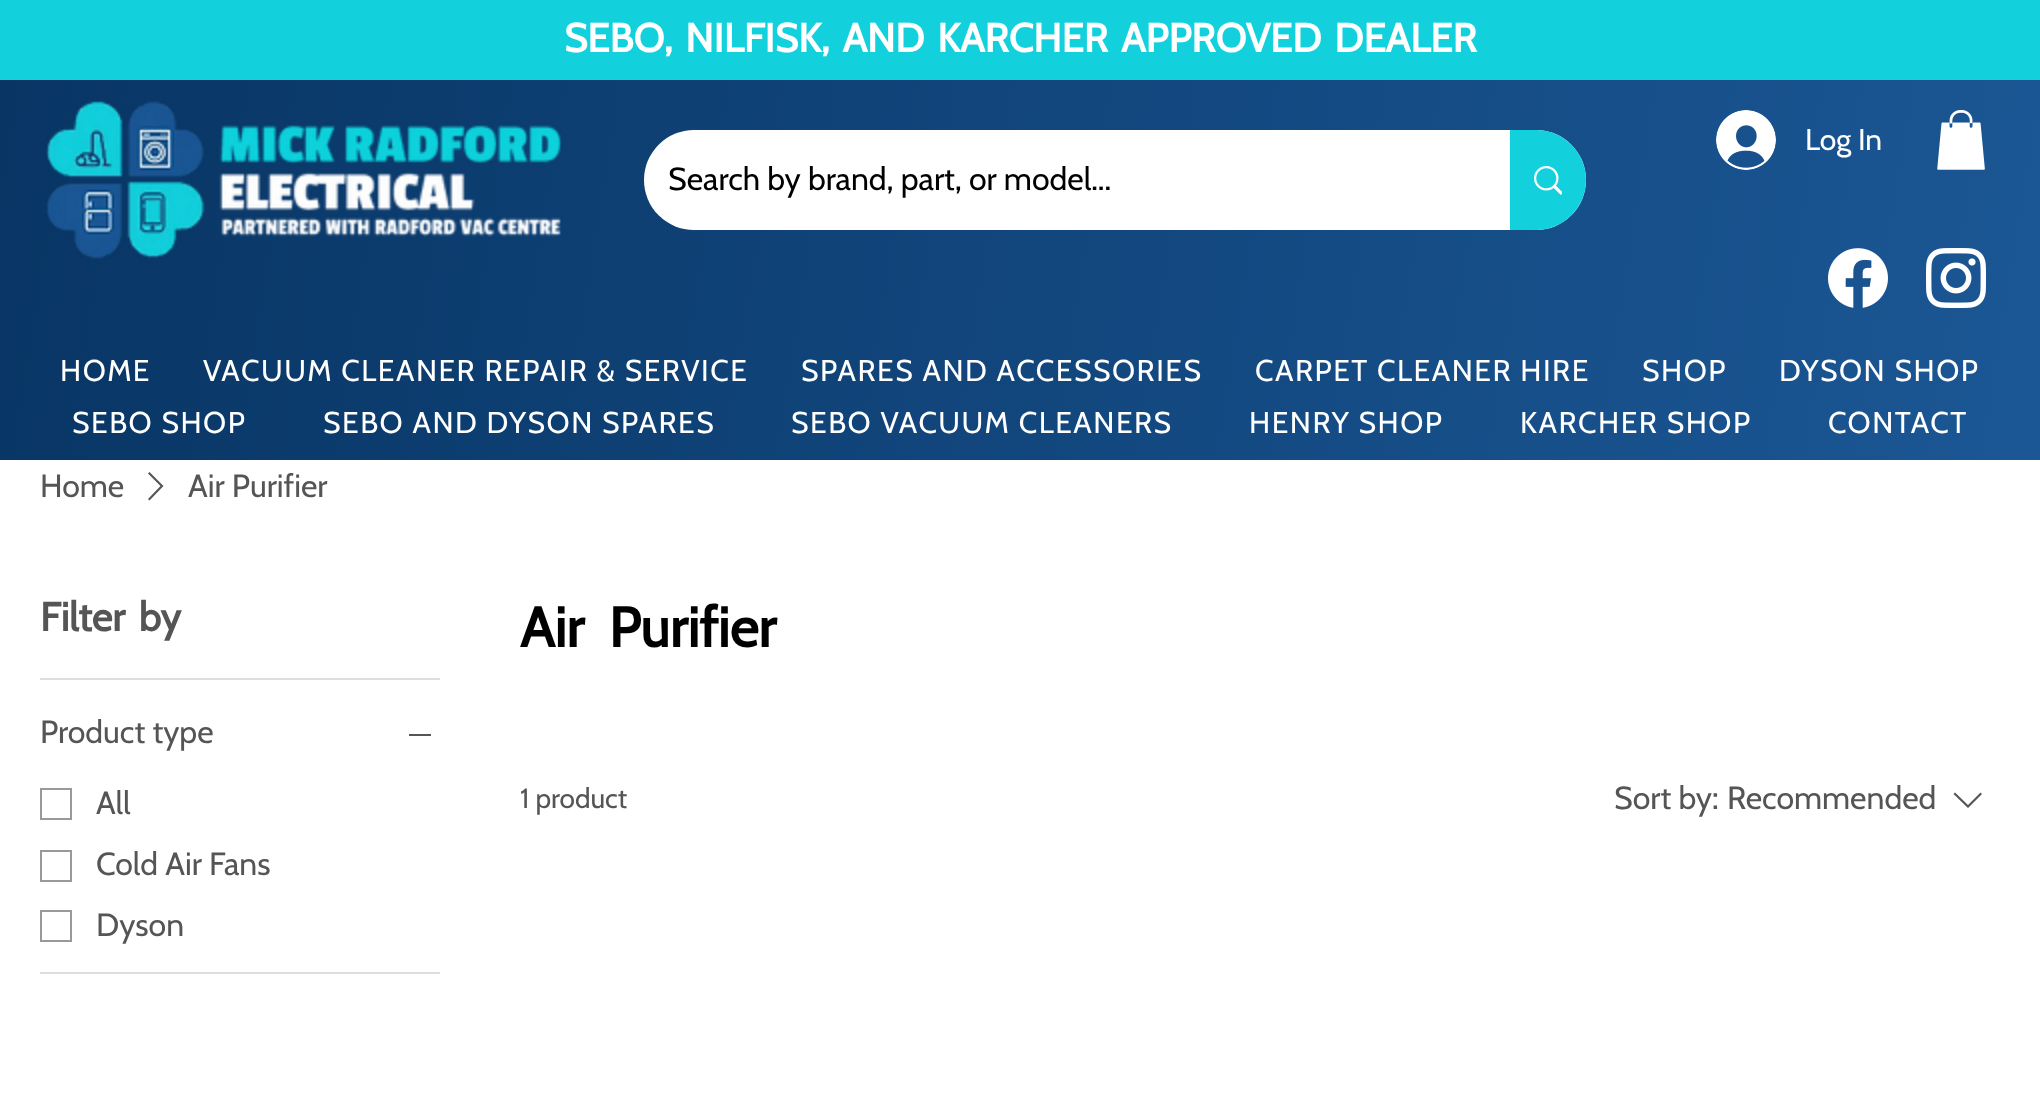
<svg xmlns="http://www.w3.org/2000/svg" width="2040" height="1119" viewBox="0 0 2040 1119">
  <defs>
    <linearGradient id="g1" gradientUnits="userSpaceOnUse" x1="-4.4" y1="108" x2="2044" y2="432"><stop offset="0" stop-color="rgb(8,53,100)"/><stop offset="1" stop-color="rgb(27,87,149)"/></linearGradient>
  </defs>
  <rect width="100%" height="100%" fill="rgb(255,255,255)"/>
  <rect x="0" y="0" width="2040" height="80" fill="rgb(19,209,220)"/>
  <text x="564" y="52" word-spacing="4" font-family="Cabin" font-size="40" font-weight="bold" fill="rgb(255,255,255)">SEBO, NILFISK, AND KARCHER APPROVED DEALER</text>
  <rect x="0" y="80" width="2040" height="380" fill="url(#g1)"/>
  <image x="45" y="101" width="517" height="158" href="pic1.png"/>
  <image x="1716" y="110" width="60" height="60" href="pic2.png"/>
  <text x="1805" y="150" font-family="Cabin" font-size="30" fill="rgb(255,255,255)">Log In</text>
  <image x="1937" y="110" width="48" height="60" href="pic3.png"/>
  <rect x="644" y="130" width="942" height="100" rx="50" fill="rgb(255,255,255)"/>
  <text x="668" y="190" font-family="Cabin" font-size="32" fill="rgb(0,0,0)">Search by brand, part, or model...</text>
  <path d="M1510 130H1536C1563.5 130 1586 152.5 1586 180C1586 207.5 1563.5 230 1536 230H1510Z" fill="rgb(19,209,220)"/>
  <image x="1534" y="166" width="28" height="29" href="pic4.png"/>
  <image x="1828" y="248" width="60" height="60" href="pic5.png"/>
  <image x="1926" y="248" width="60" height="60" href="pic6.png"/>
  <g font-family="Cabin" font-size="30" letter-spacing="1.5" fill="rgb(255,255,255)">
    <text x="60" y="381">HOME</text>
    <text x="203" y="381">VACUUM CLEANER REPAIR &amp; SERVICE</text>
    <text x="801" y="381">SPARES AND ACCESSORIES</text>
    <text x="1255" y="381">CARPET CLEANER HIRE</text>
    <text x="1642" y="381">SHOP</text>
    <text x="1779" y="381">DYSON SHOP</text>
    <text x="72" y="433">SEBO SHOP</text>
    <text x="323" y="433">SEBO AND DYSON SPARES</text>
    <text x="791" y="433">SEBO VACUUM CLEANERS</text>
    <text x="1249" y="433">HENRY SHOP</text>
    <text x="1520" y="433">KARCHER SHOP</text>
    <text x="1828" y="433">CONTACT</text>
  </g>
  <text x="40" y="497" font-family="Cabin" font-size="32" fill="rgb(85,85,85)">Home</text>
  <path d="M149.5 472L163.5 486L149.5 500.5L148 499L160.5 486L148 473.5Z" fill="rgb(85,85,85)" fill-rule="evenodd"/>
  <text x="188" y="497" font-family="Cabin" font-size="32" fill="rgb(85,85,85)">Air Purifier</text>
  <rect x="40" y="678" width="400" height="2" fill="rgb(221,221,221)"/>
  <text x="40" y="631" word-spacing="5" font-family="Cabin" font-size="40" font-weight="bold" fill="rgb(85,85,85)">Filter by</text>
  <rect x="40" y="972" width="400" height="2" fill="rgb(221,221,221)"/>
  <text x="40" y="743" font-family="Cabin" font-size="32" fill="rgb(85,85,85)">Product type</text>
  <rect x="409" y="734" width="22" height="2" fill="rgb(85,85,85)"/>
  <rect x="41" y="789" width="30" height="30" fill="none" stroke="rgb(153,153,153)" stroke-width="2"/>
  <text x="96" y="814" font-family="Cabin" font-size="32" fill="rgb(85,85,85)">All</text>
  <rect x="41" y="851" width="30" height="30" fill="none" stroke="rgb(153,153,153)" stroke-width="2"/>
  <text x="96" y="875" font-family="Cabin" font-size="32" fill="rgb(85,85,85)">Cold Air Fans</text>
  <rect x="41" y="911" width="30" height="30" fill="none" stroke="rgb(153,153,153)" stroke-width="2"/>
  <text x="96" y="936" font-family="Cabin" font-size="32" fill="rgb(85,85,85)">Dyson</text>
  <text x="520" y="647" word-spacing="12" font-family="Cabin" font-size="56" font-weight="bold" fill="rgb(0,0,0)">Air Purifier</text>
  <text x="520" y="808" font-family="Cabin" font-size="28" fill="rgb(85,85,85)">1 product</text>
  <g font-family="Cabin" font-size="32" fill="rgb(85,85,85)">
    <text x="1614" y="809">Sort by:</text>
    <text x="1727" y="809">Recommended</text>
  </g>
  <path d="M1980.5 792.5L1982 794L1968 808L1953.5 794L1955 792.5L1968 805Z" fill="rgb(85,85,85)" fill-rule="evenodd"/>
</svg>
